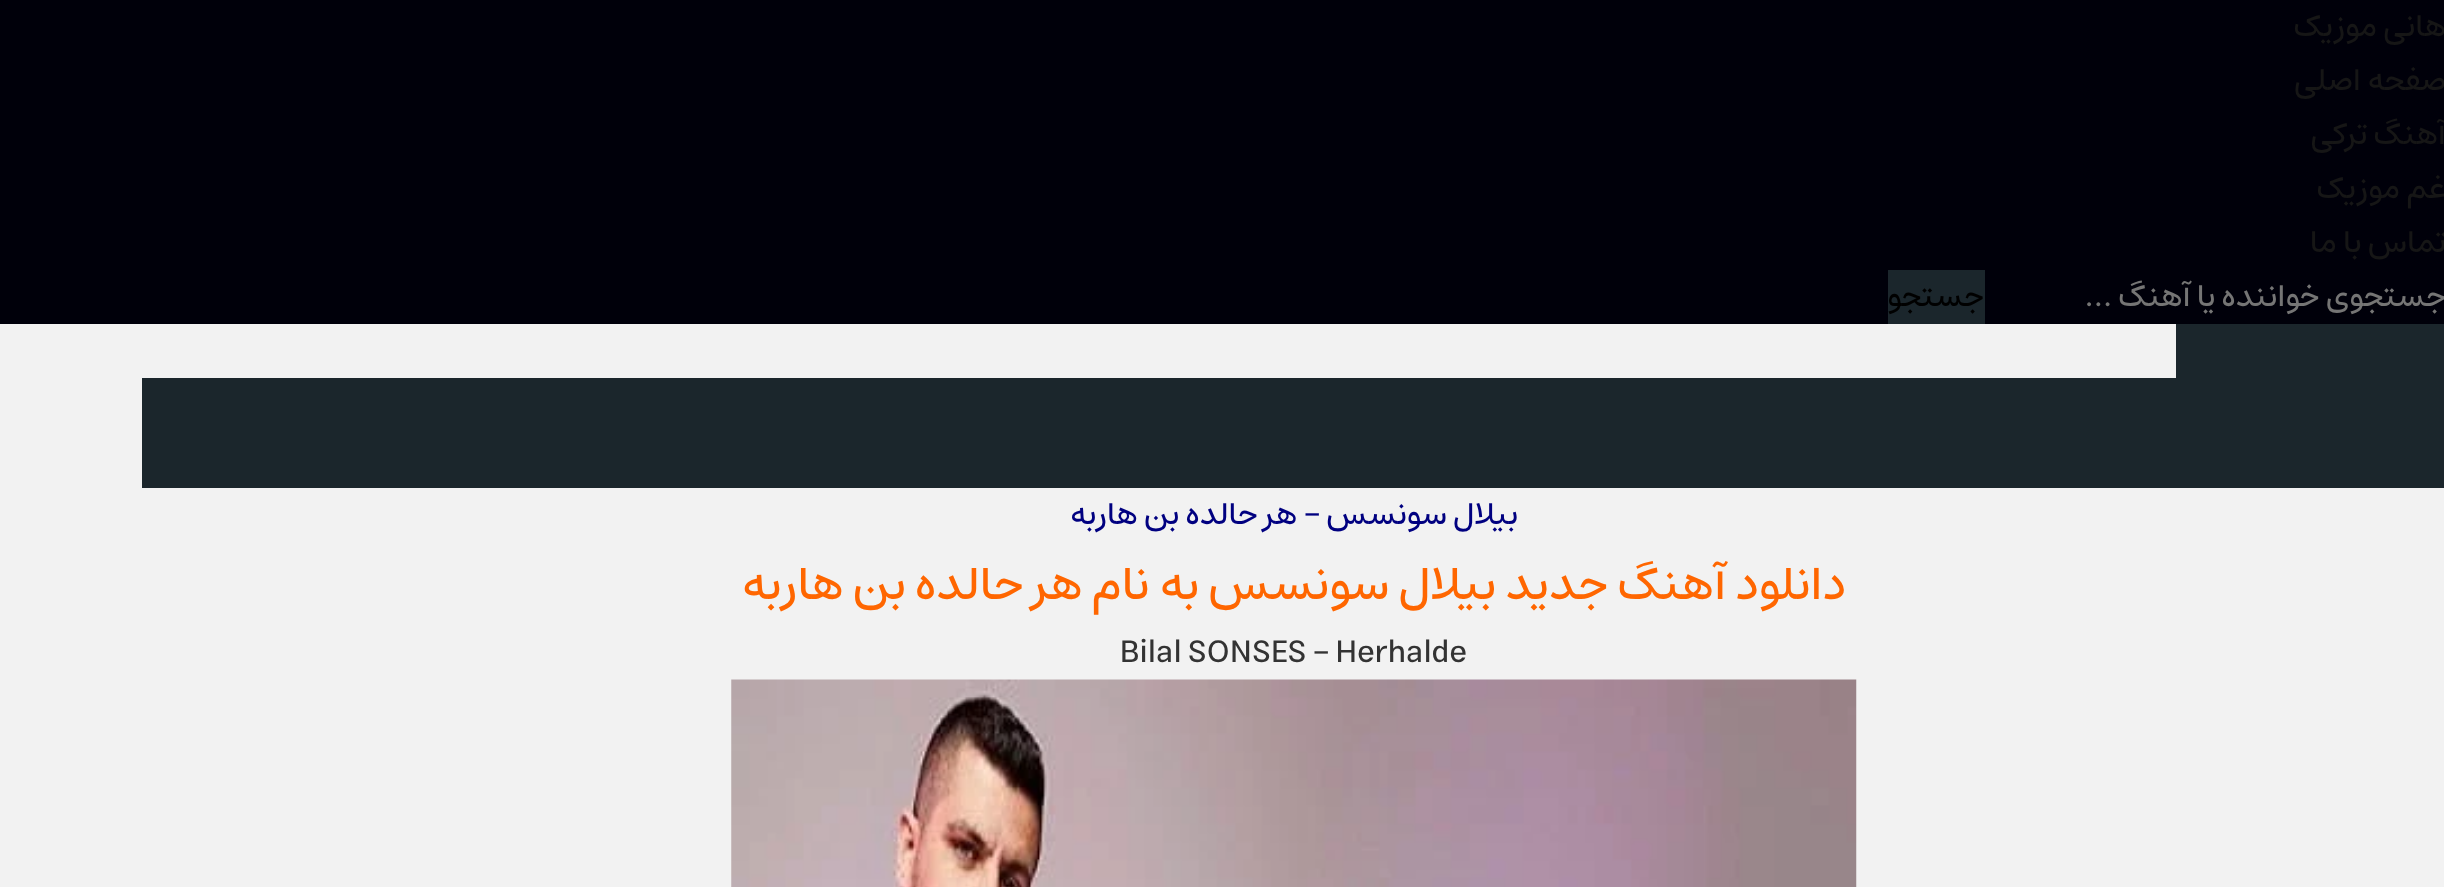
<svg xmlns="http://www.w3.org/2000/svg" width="2444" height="887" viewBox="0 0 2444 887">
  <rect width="100%" height="100%" fill="rgb(242,242,242)"/>
  <rect x="0" y="0" width="2444" height="324" fill="rgb(0,0,10)"/>
  <g font-family="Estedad" font-size="31.5" font-weight="500" direction="rtl" fill="rgb(22,22,22)">
    <text>
      <tspan x="2446" y="36">هانی موزیک</tspan>
      <tspan x="2446" y="90">صفحه اصلی</tspan>
      <tspan x="2446" y="144">آهنگ ترکی</tspan>
      <tspan x="2446" y="198">غم موزیک</tspan>
      <tspan x="2446" y="252">تماس با ما</tspan>
    </text>
  </g>
  <text x="2446" y="306" font-family="Estedad" font-size="31.5" font-weight="500" direction="rtl" fill="rgb(117,117,117)">جستجوی خواننده یا آهنگ ...</text>
  <rect x="1888" y="270" width="97" height="54" fill="rgb(27,38,44)"/>
  <text x="1984" y="306" font-family="Estedad" font-size="31.5" font-weight="500" direction="rtl" fill="rgb(0,0,0)">جستجو</text>
  <rect x="2176" y="324" width="268" height="54" fill="rgb(27,38,44)"/>
  <rect x="142" y="378" width="2302" height="110" fill="rgb(27,38,44)"/>
  <text x="1518" y="524" font-family="Estedad" font-size="31.5" font-weight="500" direction="rtl" fill="rgb(0,0,128)">بیلال سونسس – هر حالده بن هاربه</text>
  <g font-family="Estedad" font-size="47.25" font-weight="500" direction="rtl" fill="rgb(255,102,0)">
    <text x="1846" y="599">دانلود آهنگ جدید</text>
    <text x="1496" y="599">بیلال سونسس</text>
    <text x="1199" y="599">به نام هر حالده بن هاربه</text>
  </g>
  <text x="1120" y="662" font-family="Estedad" font-size="31.5" font-weight="500" fill="rgb(51,51,51)">Bilal SONSES – Herhalde</text>
  <image x="731" y="679" width="1126" height="208" href="pic1.png"/>
</svg>
